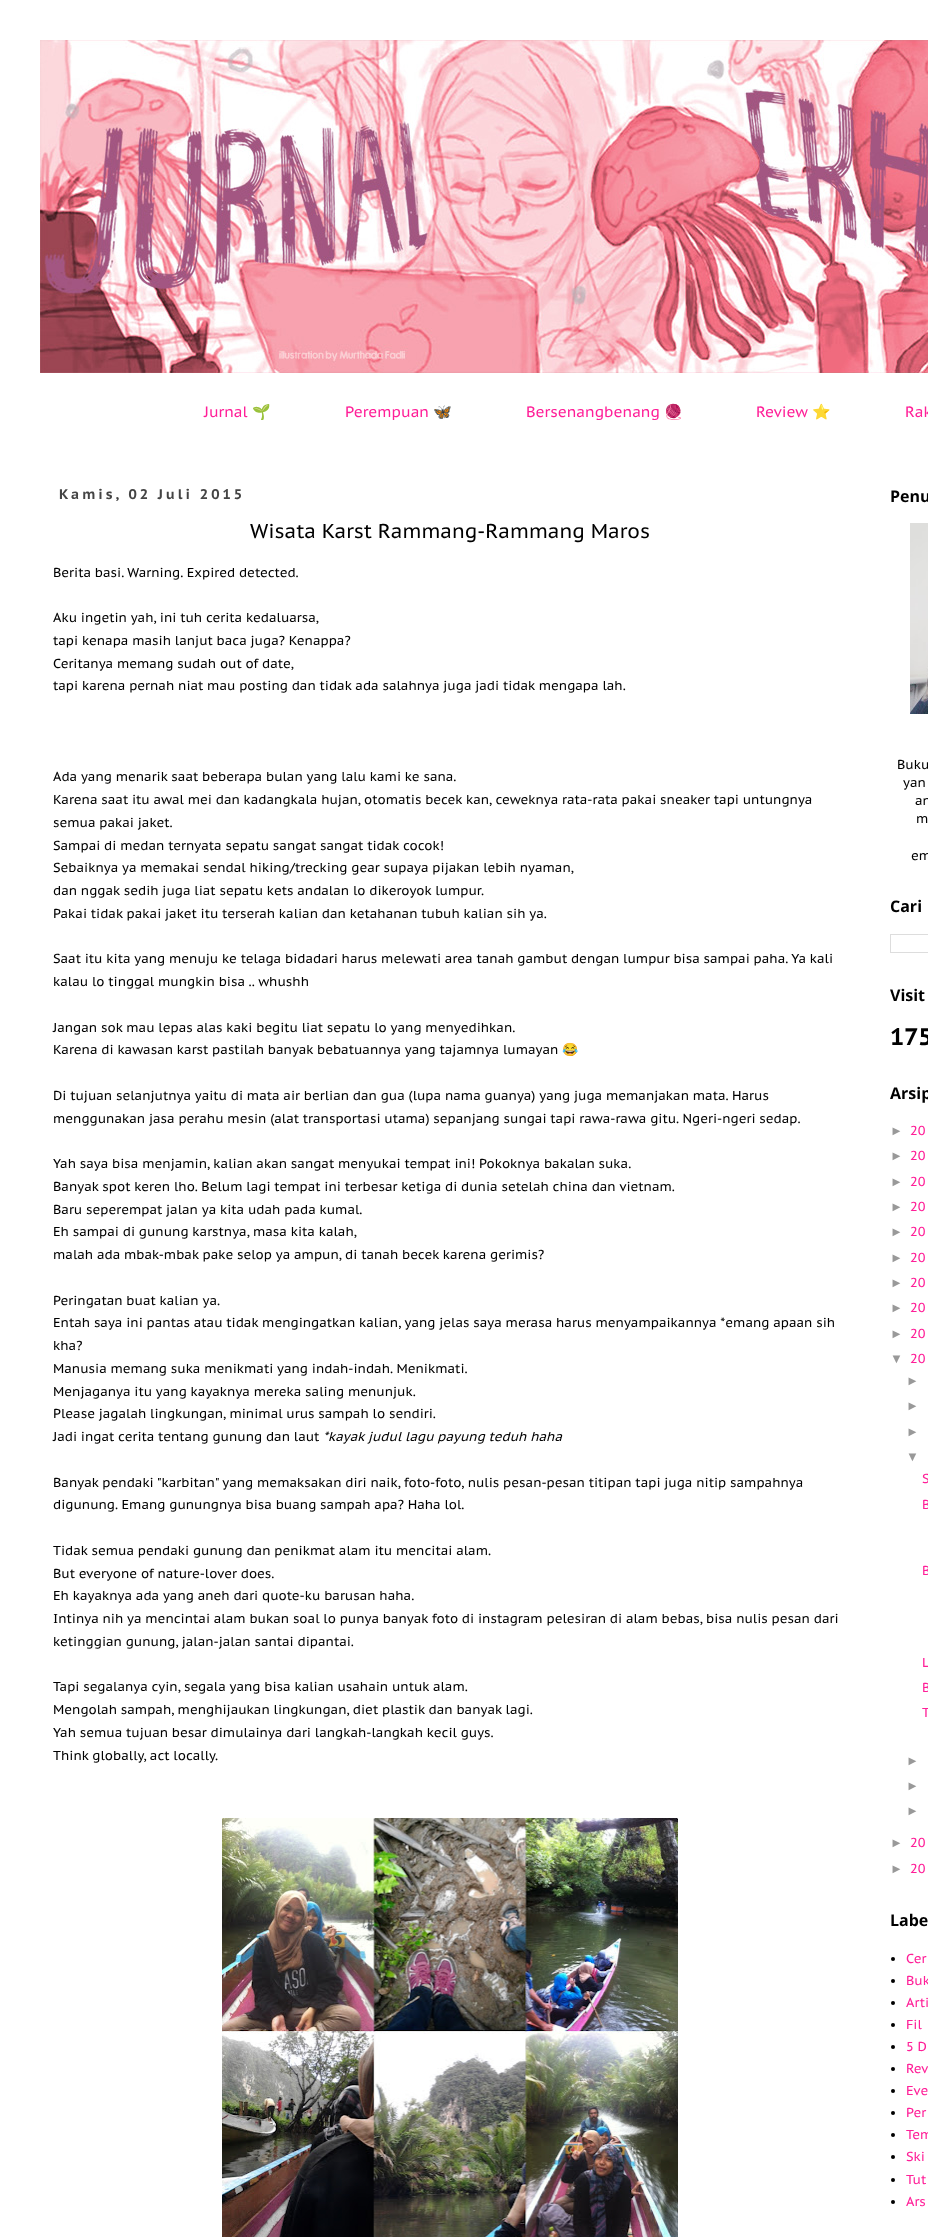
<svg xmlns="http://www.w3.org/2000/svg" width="928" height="2237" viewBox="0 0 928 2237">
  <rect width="100%" height="100%" fill="rgb(255,255,255)"/>
  <image x="40" y="40" width="888" height="333" href="pic1.png"/>
  <text x="204" y="417" font-family="PT Sans Caption" font-size="15" fill="rgb(255,31,152)">Jurnal</text>
  <text x="252" y="417" font-family="Noto Color Emoji" font-size="15" fill="rgb(255,31,152)">🌱</text>
  <text x="345" y="417" font-family="PT Sans Caption" font-size="15" fill="rgb(255,31,152)">Perempuan</text>
  <text x="433" y="417" font-family="Noto Color Emoji" font-size="15" fill="rgb(255,31,152)">🦋</text>
  <text x="526" y="417" font-family="PT Sans Caption" font-size="15" fill="rgb(255,31,152)">Bersenangbenang</text>
  <text x="664" y="417" font-family="Noto Color Emoji" font-size="15" fill="rgb(255,31,152)">🧶</text>
  <text x="756" y="417" font-family="PT Sans Caption" font-size="15" fill="rgb(255,31,152)">Review</text>
  <text x="812" y="417" font-family="Noto Color Emoji" font-size="15" fill="rgb(255,31,152)">⭐️</text>
  <text x="905" y="417" font-family="PT Sans Caption" font-size="15" fill="rgb(255,31,152)">Rak</text>
  <text x="59" y="499" font-family="PT Sans Caption" font-size="14" font-weight="bold" letter-spacing="3" fill="rgb(68,68,68)">Kamis, 02 Juli 2015</text>
  <text x="250" y="538" font-family="PT Sans Caption" font-size="20" fill="rgb(0,0,0)">Wisata Karst Rammang-Rammang Maros</text>
  <g font-family="PT Sans Caption" font-size="13" fill="rgb(0,0,0)">
    <text x="53" y="577">Berita basi. Warning. Expired detected.</text>
    <text>
      <tspan x="53" y="622">Aku ingetin yah, ini tuh cerita kedaluarsa,</tspan>
      <tspan x="53" y="645">tapi kenapa masih lanjut baca juga? Kenappa?</tspan>
      <tspan x="53" y="668">Ceritanya memang sudah out of date,</tspan>
      <tspan x="53" y="690">tapi karena pernah niat mau posting dan tidak ada salahnya juga jadi tidak mengapa lah.</tspan>
    </text>
    <text>
      <tspan x="53" y="781">Ada yang menarik saat beberapa bulan yang lalu kami ke sana.</tspan>
      <tspan x="53" y="804">Karena saat itu awal mei dan kadangkala hujan, otomatis becek kan, ceweknya rata-rata pakai sneaker tapi untungnya</tspan>
      <tspan x="53" y="827">semua pakai jaket.</tspan>
      <tspan x="53" y="850">Sampai di medan ternyata sepatu sangat sangat tidak cocok!</tspan>
      <tspan x="53" y="872">Sebaiknya ya memakai sendal hiking/trecking gear supaya pijakan lebih nyaman,</tspan>
      <tspan x="53" y="895">dan nggak sedih juga liat sepatu kets andalan lo dikeroyok lumpur.</tspan>
      <tspan x="53" y="918">Pakai tidak pakai jaket itu terserah kalian dan ketahanan tubuh kalian sih ya.</tspan>
    </text>
    <text>
      <tspan x="53" y="963">Saat itu kita yang menuju ke telaga bidadari harus melewati area tanah gambut dengan lumpur bisa sampai paha. Ya kali</tspan>
      <tspan x="53" y="986">kalau lo tinggal mungkin bisa .. whushh</tspan>
    </text>
    <text>
      <tspan x="53" y="1032">Jangan sok mau lepas alas kaki begitu liat sepatu lo yang menyedihkan.</tspan>
      <tspan x="53" y="1054">Karena di kawasan karst pastilah banyak bebatuannya yang tajamnya lumayan</tspan>
    </text>
  </g>
  <text x="562" y="1054" font-family="Noto Color Emoji" font-size="13" fill="rgb(0,0,0)">😂</text>
  <g font-family="PT Sans Caption" font-size="13" fill="rgb(0,0,0)">
    <text>
      <tspan x="53" y="1100">Di tujuan selanjutnya yaitu di mata air berlian dan gua (lupa nama guanya) yang juga memanjakan mata. Harus</tspan>
      <tspan x="53" y="1123">menggunakan jasa perahu mesin (alat transportasi utama) sepanjang sungai tapi rawa-rawa gitu. Ngeri-ngeri sedap.</tspan>
    </text>
    <text>
      <tspan x="53" y="1168">Yah saya bisa menjamin, kalian akan sangat menyukai tempat ini! Pokoknya bakalan suka.</tspan>
      <tspan x="53" y="1191">Banyak spot keren lho. Belum lagi tempat ini terbesar ketiga di dunia setelah china dan vietnam.</tspan>
      <tspan x="53" y="1214">Baru seperempat jalan ya kita udah pada kumal.</tspan>
      <tspan x="53" y="1236">Eh sampai di gunung karstnya, masa kita kalah,</tspan>
      <tspan x="53" y="1259">malah ada mbak-mbak pake selop ya ampun, di tanah becek karena gerimis?</tspan>
    </text>
    <text>
      <tspan x="53" y="1305">Peringatan buat kalian ya.</tspan>
      <tspan x="53" y="1327">Entah saya ini pantas atau tidak mengingatkan kalian, yang jelas saya merasa harus menyampaikannya *emang apaan sih</tspan>
      <tspan x="53" y="1350">kha?</tspan>
      <tspan x="53" y="1373">Manusia memang suka menikmati yang indah-indah. Menikmati.</tspan>
      <tspan x="53" y="1396">Menjaganya itu yang kayaknya mereka saling menunjuk.</tspan>
      <tspan x="53" y="1418">Please jagalah lingkungan, minimal urus sampah lo sendiri.</tspan>
      <tspan x="53" y="1441">Jadi ingat cerita tentang gunung dan laut</tspan>
    </text>
  </g>
  <text x="323" y="1441" font-family="PT Sans Caption" font-size="13" font-style="italic" fill="rgb(0,0,0)">*kayak judul lagu payung teduh haha</text>
  <g font-family="PT Sans Caption" font-size="13" fill="rgb(0,0,0)">
    <text>
      <tspan x="53" y="1487">Banyak pendaki "karbitan" yang memaksakan diri naik, foto-foto, nulis pesan-pesan titipan tapi juga nitip sampahnya</tspan>
      <tspan x="53" y="1509">digunung. Emang gunungnya bisa buang sampah apa? Haha lol.</tspan>
    </text>
    <text>
      <tspan x="53" y="1555">Tidak semua pendaki gunung dan penikmat alam itu mencitai alam.</tspan>
      <tspan x="53" y="1578">But everyone of nature-lover does.</tspan>
      <tspan x="53" y="1600">Eh kayaknya ada yang aneh dari quote-ku barusan haha.</tspan>
      <tspan x="53" y="1623">Intinya nih ya mencintai alam bukan soal lo punya banyak foto di instagram pelesiran di alam bebas, bisa nulis pesan dari</tspan>
      <tspan x="53" y="1646">ketinggian gunung, jalan-jalan santai dipantai.</tspan>
    </text>
    <text>
      <tspan x="53" y="1691">Tapi segalanya cyin, segala yang bisa kalian usahain untuk alam.</tspan>
      <tspan x="53" y="1714">Mengolah sampah, menghijaukan lingkungan, diet plastik dan banyak lagi.</tspan>
      <tspan x="53" y="1737">Yah semua tujuan besar dimulainya dari langkah-langkah kecil guys.</tspan>
      <tspan x="53" y="1760">Think globally, act locally.</tspan>
    </text>
  </g>
  <image x="222" y="1818" width="456" height="419" href="pic2.png"/>
  <text x="890" y="502" font-family="Open Sans" font-size="16" font-weight="bold" fill="rgb(0,0,0)">Penu</text>
  <image x="910" y="523" width="18" height="191" href="pic3.png"/>
  <g font-family="PT Sans Caption" font-size="13" fill="rgb(0,0,0)">
    <text x="897" y="769">Buku</text>
    <text x="903" y="787">yan</text>
    <text x="915" y="805">an</text>
    <text x="916" y="823">m</text>
    <text x="911" y="860">em</text>
  </g>
  <text x="890" y="912" font-family="Open Sans" font-size="16" font-weight="bold" fill="rgb(0,0,0)">Cari</text>
  <rect x="890.5" y="934.5" width="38" height="18" fill="none" stroke="rgb(221,221,221)"/>
  <text x="890" y="1001" font-family="Open Sans" font-size="16" font-weight="bold" fill="rgb(0,0,0)">Visit</text>
  <text x="890" y="1045" font-family="PT Sans Caption" font-size="24" font-weight="bold" fill="rgb(0,0,0)">175</text>
  <text x="890" y="1099" font-family="Open Sans" font-size="16" font-weight="bold" fill="rgb(0,0,0)">Arsip</text>
  <text x="890" y="1135" font-family="Liberation Sans" font-size="13" fill="rgb(153,153,153)">►</text>
  <text x="910" y="1135" font-family="PT Sans Caption" font-size="13" fill="rgb(255,31,152)">20</text>
  <text x="890" y="1160" font-family="Liberation Sans" font-size="13" fill="rgb(153,153,153)">►</text>
  <text x="910" y="1160" font-family="PT Sans Caption" font-size="13" fill="rgb(255,31,152)">20</text>
  <text x="890" y="1186" font-family="Liberation Sans" font-size="13" fill="rgb(153,153,153)">►</text>
  <text x="910" y="1186" font-family="PT Sans Caption" font-size="13" fill="rgb(255,31,152)">20</text>
  <text x="890" y="1211" font-family="Liberation Sans" font-size="13" fill="rgb(153,153,153)">►</text>
  <text x="910" y="1211" font-family="PT Sans Caption" font-size="13" fill="rgb(255,31,152)">20</text>
  <text x="890" y="1236" font-family="Liberation Sans" font-size="13" fill="rgb(153,153,153)">►</text>
  <text x="910" y="1236" font-family="PT Sans Caption" font-size="13" fill="rgb(255,31,152)">20</text>
  <text x="890" y="1262" font-family="Liberation Sans" font-size="13" fill="rgb(153,153,153)">►</text>
  <text x="910" y="1262" font-family="PT Sans Caption" font-size="13" fill="rgb(255,31,152)">20</text>
  <text x="890" y="1287" font-family="Liberation Sans" font-size="13" fill="rgb(153,153,153)">►</text>
  <text x="910" y="1287" font-family="PT Sans Caption" font-size="13" fill="rgb(255,31,152)">20</text>
  <text x="890" y="1312" font-family="Liberation Sans" font-size="13" fill="rgb(153,153,153)">►</text>
  <text x="910" y="1312" font-family="PT Sans Caption" font-size="13" fill="rgb(255,31,152)">20</text>
  <text x="890" y="1338" font-family="Liberation Sans" font-size="13" fill="rgb(153,153,153)">►</text>
  <text x="910" y="1338" font-family="PT Sans Caption" font-size="13" fill="rgb(255,31,152)">20</text>
  <text x="890" y="1363" font-family="Liberation Sans" font-size="13" fill="rgb(153,153,153)">▼</text>
  <text x="910" y="1363" font-family="PT Sans Caption" font-size="13" fill="rgb(255,31,152)">20</text>
  <g font-family="Liberation Sans" font-size="13" fill="rgb(153,153,153)">
    <text>
      <tspan x="906" y="1385">►</tspan>
      <tspan x="906" y="1410">►</tspan>
    </text>
    <text>
      <tspan x="906" y="1436">►</tspan>
      <tspan x="906" y="1461">▼</tspan>
    </text>
  </g>
  <g font-family="PT Sans Caption" font-size="13" fill="rgb(255,31,152)">
    <text x="922" y="1483">S</text>
    <text x="922" y="1509">B</text>
    <text x="922" y="1575">B</text>
    <text>
      <tspan x="922" y="1667">L</tspan>
      <tspan x="922" y="1692">B</tspan>
      <tspan x="922" y="1717">T</tspan>
    </text>
  </g>
  <g font-family="Liberation Sans" font-size="13" fill="rgb(153,153,153)">
    <text>
      <tspan x="906" y="1765">►</tspan>
      <tspan x="906" y="1790">►</tspan>
      <tspan x="906" y="1815">►</tspan>
    </text>
    <text x="890" y="1847">►</text>
  </g>
  <text x="910" y="1847" font-family="PT Sans Caption" font-size="13" fill="rgb(255,31,152)">20</text>
  <text x="890" y="1873" font-family="Liberation Sans" font-size="13" fill="rgb(153,153,153)">►</text>
  <text x="910" y="1873" font-family="PT Sans Caption" font-size="13" fill="rgb(255,31,152)">20</text>
  <text x="890" y="1926" font-family="Open Sans" font-size="16" font-weight="bold" fill="rgb(0,0,0)">Labe</text>
  <circle cx="893" cy="1959" r="2" fill="rgb(0,0,0)"/>
  <text x="906" y="1963" font-family="PT Sans Caption" font-size="13" fill="rgb(255,31,152)">Cer</text>
  <circle cx="893" cy="1981" r="2" fill="rgb(0,0,0)"/>
  <text x="906" y="1985" font-family="PT Sans Caption" font-size="13" fill="rgb(255,31,152)">Buk</text>
  <circle cx="893" cy="2003" r="2" fill="rgb(0,0,0)"/>
  <text x="906" y="2007" font-family="PT Sans Caption" font-size="13" fill="rgb(255,31,152)">Arti</text>
  <circle cx="893" cy="2025" r="2" fill="rgb(0,0,0)"/>
  <text x="906" y="2029" font-family="PT Sans Caption" font-size="13" fill="rgb(255,31,152)">Fil</text>
  <circle cx="893" cy="2047" r="2" fill="rgb(0,0,0)"/>
  <text x="906" y="2051" font-family="PT Sans Caption" font-size="13" fill="rgb(255,31,152)">5 D</text>
  <circle cx="893" cy="2069" r="2" fill="rgb(0,0,0)"/>
  <text x="906" y="2073" font-family="PT Sans Caption" font-size="13" fill="rgb(255,31,152)">Rev</text>
  <circle cx="893" cy="2091" r="2" fill="rgb(0,0,0)"/>
  <text x="906" y="2095" font-family="PT Sans Caption" font-size="13" fill="rgb(255,31,152)">Eve</text>
  <circle cx="893" cy="2113" r="2" fill="rgb(0,0,0)"/>
  <text x="906" y="2117" font-family="PT Sans Caption" font-size="13" fill="rgb(255,31,152)">Per</text>
  <circle cx="893" cy="2135" r="2" fill="rgb(0,0,0)"/>
  <text x="906" y="2139" font-family="PT Sans Caption" font-size="13" fill="rgb(255,31,152)">Tem</text>
  <circle cx="893" cy="2157" r="2" fill="rgb(0,0,0)"/>
  <text x="906" y="2161" font-family="PT Sans Caption" font-size="13" fill="rgb(255,31,152)">Ski</text>
  <circle cx="893" cy="2180" r="2" fill="rgb(0,0,0)"/>
  <text x="906" y="2184" font-family="PT Sans Caption" font-size="13" fill="rgb(255,31,152)">Tut</text>
  <circle cx="893" cy="2202" r="2" fill="rgb(0,0,0)"/>
  <text x="906" y="2206" font-family="PT Sans Caption" font-size="13" fill="rgb(255,31,152)">Ars</text>
</svg>
